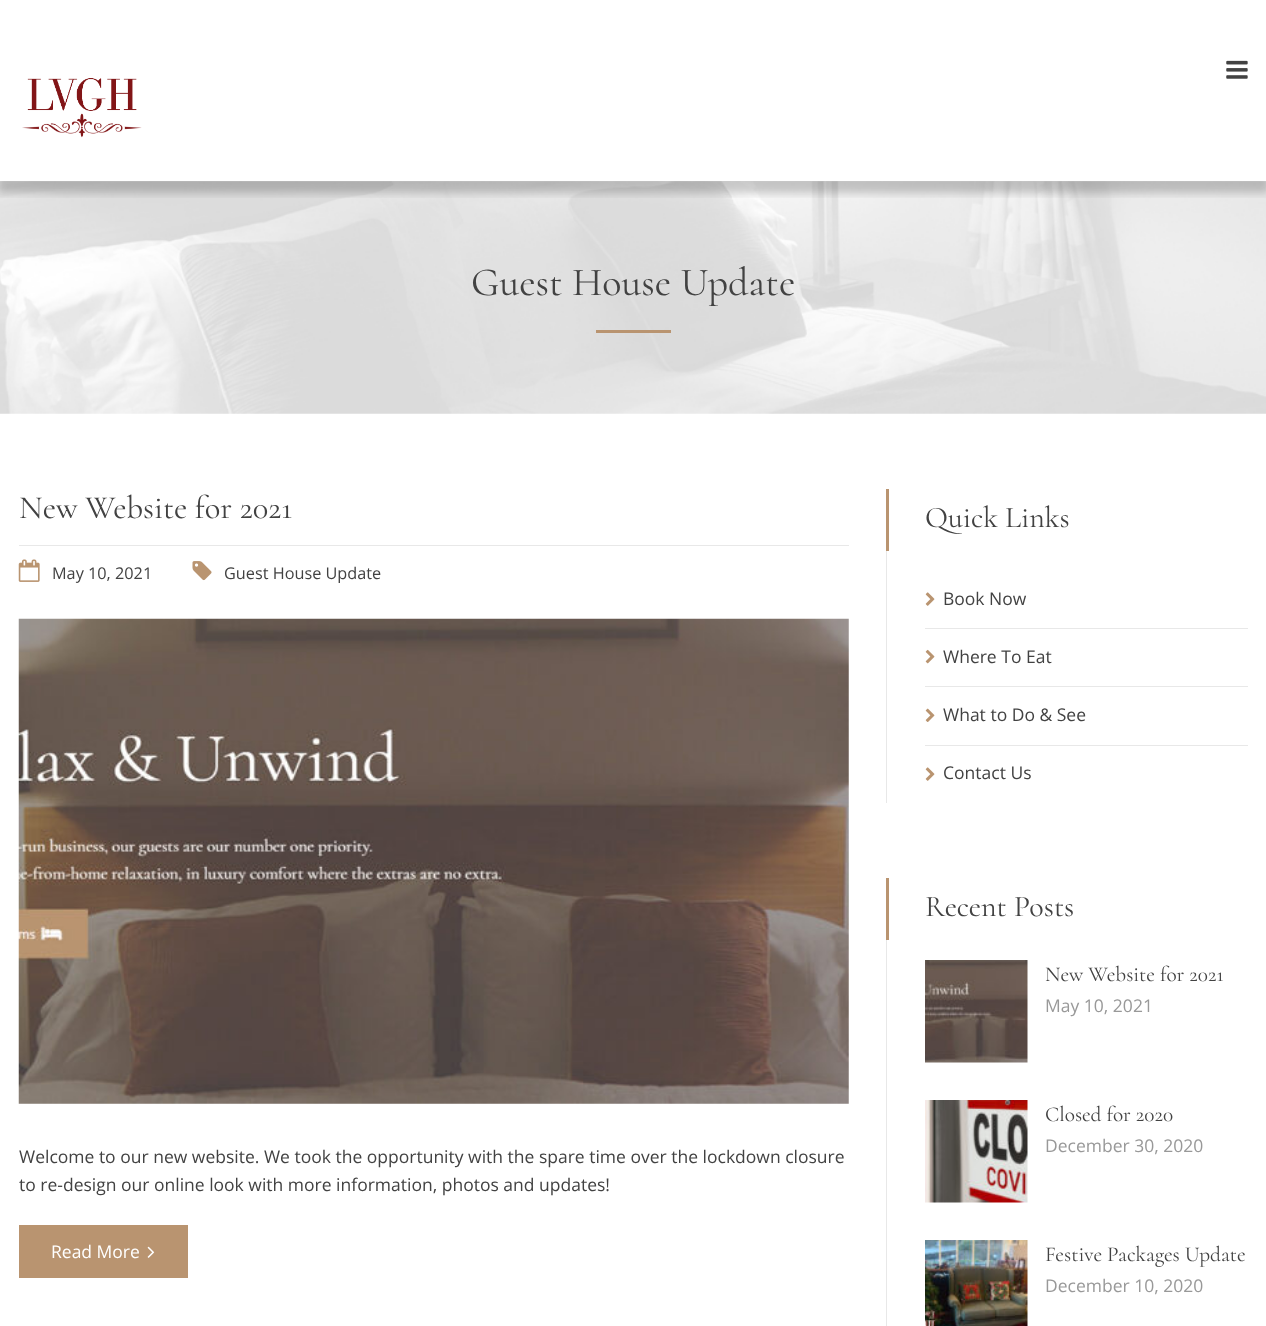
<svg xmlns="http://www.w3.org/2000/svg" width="1266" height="1326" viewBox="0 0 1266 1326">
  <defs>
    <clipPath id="clip1"><rect x="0" y="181" width="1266" height="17"/></clipPath>
  </defs>
  <rect width="100%" height="100%" fill="rgb(255,255,255)"/>
  <image x="0" y="181" width="1266" height="233" href="pic3.png"/>
  <g clip-path="url(#clip1)">
    <rect x="-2" y="6" width="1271" height="187" fill="rgba(0,0,0,0.2)" filter="blur(4px)"/>
  </g>
  <image x="1226" y="60" width="22" height="19" href="pic1.png"/>
  <image x="22" y="78" width="120" height="60" href="pic2.png"/>
  <text x="471" y="295" font-family="Cormorant" font-size="40" fill="rgb(66,66,66)">Guest House Update</text>
  <rect x="596" y="330" width="75" height="3" fill="rgb(185,148,112)"/>
  <text x="19" y="518" font-family="Cormorant" font-size="32.5" fill="rgb(66,66,66)">New Website for 2021</text>
  <rect x="19" y="545" width="830" height="1" fill="rgb(232,232,232)"/>
  <image x="18" y="559" width="22" height="23" href="pic4.png"/>
  <text x="52" y="579" font-family="Open Sans" font-size="16.25" fill="rgb(66,66,66)">May 10, 2021</text>
  <image x="192" y="561" width="20" height="20" href="pic5.png"/>
  <text x="224" y="579" font-family="Open Sans" font-size="16.25" fill="rgb(66,66,66)">Guest House Update</text>
  <image x="18" y="618" width="831" height="486" href="pic6.png"/>
  <g font-family="Open Sans" font-size="17.5" fill="rgb(66,66,66)">
    <text>
      <tspan x="19" y="1163">Welcome to our new website. We took the opportunity with the spare time over the lockdown closure</tspan>
      <tspan x="19" y="1191">to re-design our online look with more information, photos and updates!</tspan>
    </text>
  </g>
  <rect x="19" y="1225" width="169" height="53" fill="rgb(185,148,112)"/>
  <text x="51" y="1258" font-family="Open Sans" font-size="17.5" fill="rgb(255,255,255)">Read More</text>
  <image x="147" y="1246" width="8" height="12" href="pic7.png"/>
  <rect x="886" y="551" width="1" height="252" fill="rgb(232,232,232)"/>
  <rect x="886" y="489" width="3" height="62" fill="rgb(185,148,112)"/>
  <text x="925" y="527" font-family="Cormorant" font-size="30" fill="rgb(66,66,66)">Quick Links</text>
  <rect x="925" y="628" width="323" height="1" fill="rgb(232,232,232)"/>
  <image x="925" y="592" width="10" height="14" href="pic8.png"/>
  <text x="943" y="605" font-family="Open Sans" font-size="17.5" fill="rgb(66,66,66)">Book Now</text>
  <rect x="925" y="686" width="323" height="1" fill="rgb(232,232,232)"/>
  <image x="925" y="649" width="10" height="15" href="pic9.png"/>
  <text x="943" y="663" font-family="Open Sans" font-size="17.5" fill="rgb(66,66,66)">Where To Eat</text>
  <rect x="925" y="745" width="323" height="1" fill="rgb(232,232,232)"/>
  <image x="925" y="708" width="10" height="14" href="pic10.png"/>
  <text x="943" y="721" font-family="Open Sans" font-size="17.5" fill="rgb(66,66,66)">What to Do &amp; See</text>
  <image x="925" y="767" width="10" height="14" href="pic8.png"/>
  <text x="943" y="779" font-family="Open Sans" font-size="17.5" fill="rgb(66,66,66)">Contact Us</text>
  <rect x="886" y="940" width="1" height="386" fill="rgb(232,232,232)"/>
  <rect x="886" y="878" width="3" height="62" fill="rgb(185,148,112)"/>
  <text x="925" y="916" font-family="Cormorant" font-size="30" fill="rgb(66,66,66)">Recent Posts</text>
  <image x="925" y="960" width="103" height="103" href="pic11.png"/>
  <text x="1045" y="981" font-family="Cormorant" font-size="21.25" fill="rgb(66,66,66)">New Website for 2021</text>
  <text x="1045" y="1012" font-family="Open Sans" font-size="17.5" fill="rgb(153,153,153)">May 10, 2021</text>
  <image x="925" y="1100" width="103" height="103" href="pic12.png"/>
  <text x="1045" y="1121" font-family="Cormorant" font-size="21.25" fill="rgb(66,66,66)">Closed for 2020</text>
  <text x="1045" y="1152" font-family="Open Sans" font-size="17.5" fill="rgb(153,153,153)">December 30, 2020</text>
  <image x="925" y="1240" width="103" height="86" href="pic13.png"/>
  <text x="1045" y="1261" font-family="Cormorant" font-size="21.25" fill="rgb(66,66,66)">Festive Packages Update</text>
  <text x="1045" y="1292" font-family="Open Sans" font-size="17.5" fill="rgb(153,153,153)">December 10, 2020</text>
</svg>
